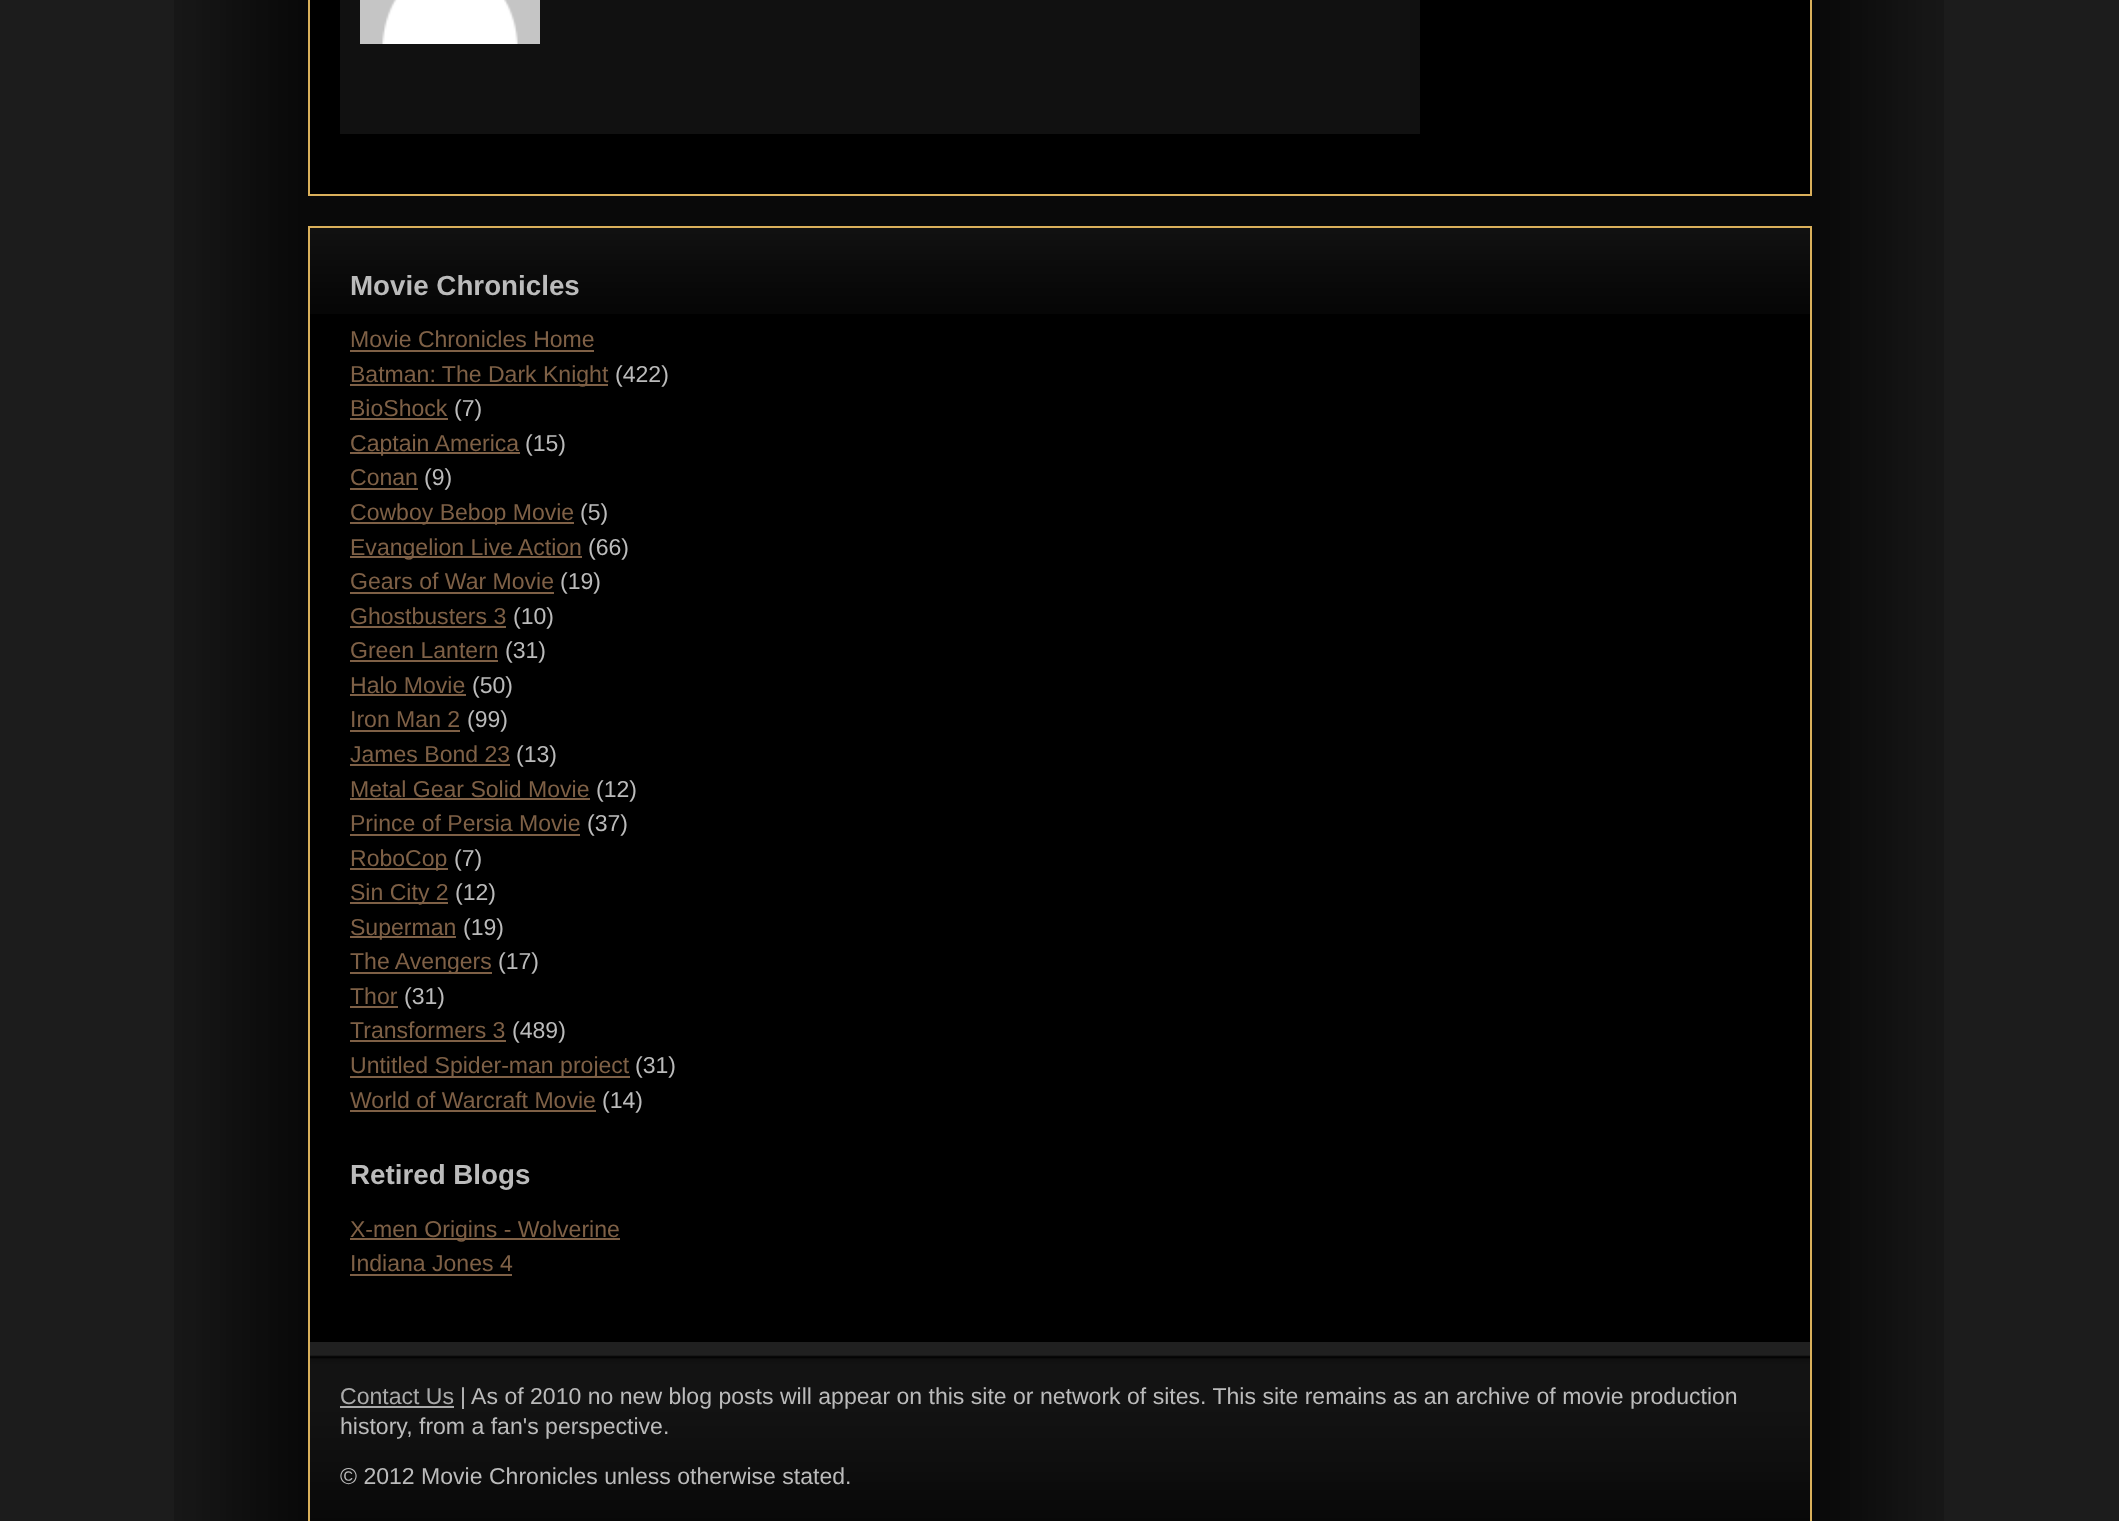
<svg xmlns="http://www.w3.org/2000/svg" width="2119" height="1521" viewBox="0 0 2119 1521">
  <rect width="100%" height="100%" fill="rgb(28,28,28)"/>
  <image x="174" y="0" width="1770" height="1521" href="pic1.png"/>
  <rect x="309" y="-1" width="1502" height="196" fill="rgb(0,0,0)" stroke="rgb(218,176,91)" stroke-width="2"/>
  <rect x="340" y="0" width="1080" height="134" fill="rgb(17,17,17)"/>
  <image x="360" y="0" width="180" height="44" href="pic2.png"/>
  <rect x="310" y="228" width="1500" height="1293" fill="rgb(0,0,0)"/>
  <image x="310" y="228" width="1500" height="86" href="pic3.png"/>
  <rect x="309" y="227" width="1502" height="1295" fill="none" stroke="rgb(218,176,91)" stroke-width="2"/>
  <text x="350" y="295" font-family="Liberation Sans" font-size="27.75" font-weight="bold" fill="rgb(187,187,187)">Movie Chronicles</text>
  <text x="350" y="347" font-family="Liberation Sans" font-size="23.05" fill="rgb(126,96,70)">Movie Chronicles Home</text>
  <rect x="350" y="350" width="244" height="2" fill="rgb(126,96,70)"/>
  <rect x="350" y="384" width="258" height="2" fill="rgb(126,96,70)"/>
  <text x="350" y="382" font-family="Liberation Sans" font-size="23.05" fill="rgb(126,96,70)">Batman: The Dark Knight</text>
  <text x="615" y="382" font-family="Liberation Sans" font-size="23.05" fill="rgb(187,187,187)">(422)</text>
  <text x="350" y="416" font-family="Liberation Sans" font-size="23.05" fill="rgb(126,96,70)">BioShock</text>
  <rect x="350" y="418" width="98" height="2" fill="rgb(126,96,70)"/>
  <text x="454" y="416" font-family="Liberation Sans" font-size="23.05" fill="rgb(187,187,187)">(7)</text>
  <rect x="350" y="452" width="170" height="2" fill="rgb(126,96,70)"/>
  <text x="350" y="451" font-family="Liberation Sans" font-size="23.05" fill="rgb(126,96,70)">Captain America</text>
  <text x="525" y="451" font-family="Liberation Sans" font-size="23.05" fill="rgb(187,187,187)">(15)</text>
  <text x="350" y="485" font-family="Liberation Sans" font-size="23.05" fill="rgb(126,96,70)">Conan</text>
  <rect x="350" y="488" width="68" height="2" fill="rgb(126,96,70)"/>
  <text x="424" y="485" font-family="Liberation Sans" font-size="23.05" fill="rgb(187,187,187)">(9)</text>
  <rect x="350" y="522" width="224" height="2" fill="rgb(126,96,70)"/>
  <text x="350" y="520" font-family="Liberation Sans" font-size="23.05" fill="rgb(126,96,70)">Cowboy Bebop Movie</text>
  <text x="580" y="520" font-family="Liberation Sans" font-size="23.05" fill="rgb(187,187,187)">(5)</text>
  <rect x="350" y="556" width="232" height="2" fill="rgb(126,96,70)"/>
  <text x="350" y="555" font-family="Liberation Sans" font-size="23.05" fill="rgb(126,96,70)">Evangelion Live Action</text>
  <text x="588" y="555" font-family="Liberation Sans" font-size="23.05" fill="rgb(187,187,187)">(66)</text>
  <text x="350" y="589" font-family="Liberation Sans" font-size="23.05" fill="rgb(126,96,70)">Gears of War Movie</text>
  <rect x="350" y="592" width="204" height="2" fill="rgb(126,96,70)"/>
  <text x="560" y="589" font-family="Liberation Sans" font-size="23.05" fill="rgb(187,187,187)">(19)</text>
  <text x="350" y="624" font-family="Liberation Sans" font-size="23.05" fill="rgb(126,96,70)">Ghostbusters 3</text>
  <rect x="350" y="626" width="156" height="2" fill="rgb(126,96,70)"/>
  <text x="513" y="624" font-family="Liberation Sans" font-size="23.05" fill="rgb(187,187,187)">(10)</text>
  <text x="350" y="658" font-family="Liberation Sans" font-size="23.05" fill="rgb(126,96,70)">Green Lantern</text>
  <rect x="350" y="660" width="148" height="2" fill="rgb(126,96,70)"/>
  <text x="505" y="658" font-family="Liberation Sans" font-size="23.05" fill="rgb(187,187,187)">(31)</text>
  <text x="350" y="693" font-family="Liberation Sans" font-size="23.05" fill="rgb(126,96,70)">Halo Movie</text>
  <rect x="350" y="694" width="116" height="2" fill="rgb(126,96,70)"/>
  <text x="472" y="693" font-family="Liberation Sans" font-size="23.05" fill="rgb(187,187,187)">(50)</text>
  <text x="350" y="727" font-family="Liberation Sans" font-size="23.05" fill="rgb(126,96,70)">Iron Man 2</text>
  <rect x="350" y="730" width="110" height="2" fill="rgb(126,96,70)"/>
  <text x="467" y="727" font-family="Liberation Sans" font-size="23.05" fill="rgb(187,187,187)">(99)</text>
  <text x="350" y="762" font-family="Liberation Sans" font-size="23.05" fill="rgb(126,96,70)">James Bond 23</text>
  <rect x="350" y="764" width="160" height="2" fill="rgb(126,96,70)"/>
  <text x="516" y="762" font-family="Liberation Sans" font-size="23.05" fill="rgb(187,187,187)">(13)</text>
  <text x="350" y="797" font-family="Liberation Sans" font-size="23.05" fill="rgb(126,96,70)">Metal Gear Solid Movie</text>
  <rect x="350" y="798" width="240" height="2" fill="rgb(126,96,70)"/>
  <text x="596" y="797" font-family="Liberation Sans" font-size="23.05" fill="rgb(187,187,187)">(12)</text>
  <text x="350" y="831" font-family="Liberation Sans" font-size="23.05" fill="rgb(126,96,70)">Prince of Persia Movie</text>
  <rect x="350" y="834" width="230" height="2" fill="rgb(126,96,70)"/>
  <text x="587" y="831" font-family="Liberation Sans" font-size="23.05" fill="rgb(187,187,187)">(37)</text>
  <rect x="350" y="868" width="98" height="2" fill="rgb(126,96,70)"/>
  <text x="350" y="866" font-family="Liberation Sans" font-size="23.05" fill="rgb(126,96,70)">RoboCop</text>
  <text x="454" y="866" font-family="Liberation Sans" font-size="23.05" fill="rgb(187,187,187)">(7)</text>
  <rect x="350" y="902" width="98" height="2" fill="rgb(126,96,70)"/>
  <text x="350" y="900" font-family="Liberation Sans" font-size="23.05" fill="rgb(126,96,70)">Sin City 2</text>
  <text x="455" y="900" font-family="Liberation Sans" font-size="23.05" fill="rgb(187,187,187)">(12)</text>
  <rect x="350" y="936" width="106" height="2" fill="rgb(126,96,70)"/>
  <text x="350" y="935" font-family="Liberation Sans" font-size="23.05" fill="rgb(126,96,70)">Superman</text>
  <text x="463" y="935" font-family="Liberation Sans" font-size="23.05" fill="rgb(187,187,187)">(19)</text>
  <rect x="350" y="972" width="142" height="2" fill="rgb(126,96,70)"/>
  <text x="350" y="969" font-family="Liberation Sans" font-size="23.05" fill="rgb(126,96,70)">The Avengers</text>
  <text x="498" y="969" font-family="Liberation Sans" font-size="23.05" fill="rgb(187,187,187)">(17)</text>
  <text x="350" y="1004" font-family="Liberation Sans" font-size="23.05" fill="rgb(126,96,70)">Thor</text>
  <rect x="350" y="1006" width="48" height="2" fill="rgb(126,96,70)"/>
  <text x="404" y="1004" font-family="Liberation Sans" font-size="23.05" fill="rgb(187,187,187)">(31)</text>
  <text x="350" y="1038" font-family="Liberation Sans" font-size="23.05" fill="rgb(126,96,70)">Transformers 3</text>
  <rect x="350" y="1040" width="156" height="2" fill="rgb(126,96,70)"/>
  <text x="512" y="1038" font-family="Liberation Sans" font-size="23.05" fill="rgb(187,187,187)">(489)</text>
  <rect x="350" y="1076" width="280" height="2" fill="rgb(126,96,70)"/>
  <text x="350" y="1073" font-family="Liberation Sans" font-size="23.05" fill="rgb(126,96,70)">Untitled Spider-man project</text>
  <text x="635" y="1073" font-family="Liberation Sans" font-size="23.05" fill="rgb(187,187,187)">(31)</text>
  <text x="350" y="1108" font-family="Liberation Sans" font-size="23.05" fill="rgb(126,96,70)">World of Warcraft Movie</text>
  <rect x="350" y="1110" width="246" height="2" fill="rgb(126,96,70)"/>
  <text x="602" y="1108" font-family="Liberation Sans" font-size="23.05" fill="rgb(187,187,187)">(14)</text>
  <text x="350" y="1184" font-family="Liberation Sans" font-size="27.75" font-weight="bold" fill="rgb(187,187,187)">Retired Blogs</text>
  <rect x="350" y="1238" width="270" height="2" fill="rgb(126,96,70)"/>
  <g font-family="Liberation Sans" font-size="23.05" fill="rgb(126,96,70)">
    <text>
      <tspan x="350" y="1237">X-men Origins - Wolverine</tspan>
      <tspan x="350" y="1271">Indiana Jones 4</tspan>
    </text>
  </g>
  <rect x="350" y="1274" width="162" height="2" fill="rgb(126,96,70)"/>
  <image x="310" y="1342" width="1500" height="179" href="pic4.png"/>
  <text x="340" y="1404" font-family="Liberation Sans" font-size="23.05" fill="rgb(170,170,170)">Contact Us</text>
  <rect x="340" y="1406" width="114" height="2" fill="rgb(170,170,170)"/>
  <g font-family="Liberation Sans" font-size="23.05" fill="rgb(187,187,187)">
    <text x="460" y="1404">| As of 2010 no new blog posts will appear on this site or network of sites. This site remains as an archive of movie production</text>
    <text x="340" y="1434">history, from a fan's perspective.</text>
    <text x="340" y="1484">© 2012 Movie Chronicles unless otherwise stated.</text>
  </g>
</svg>
